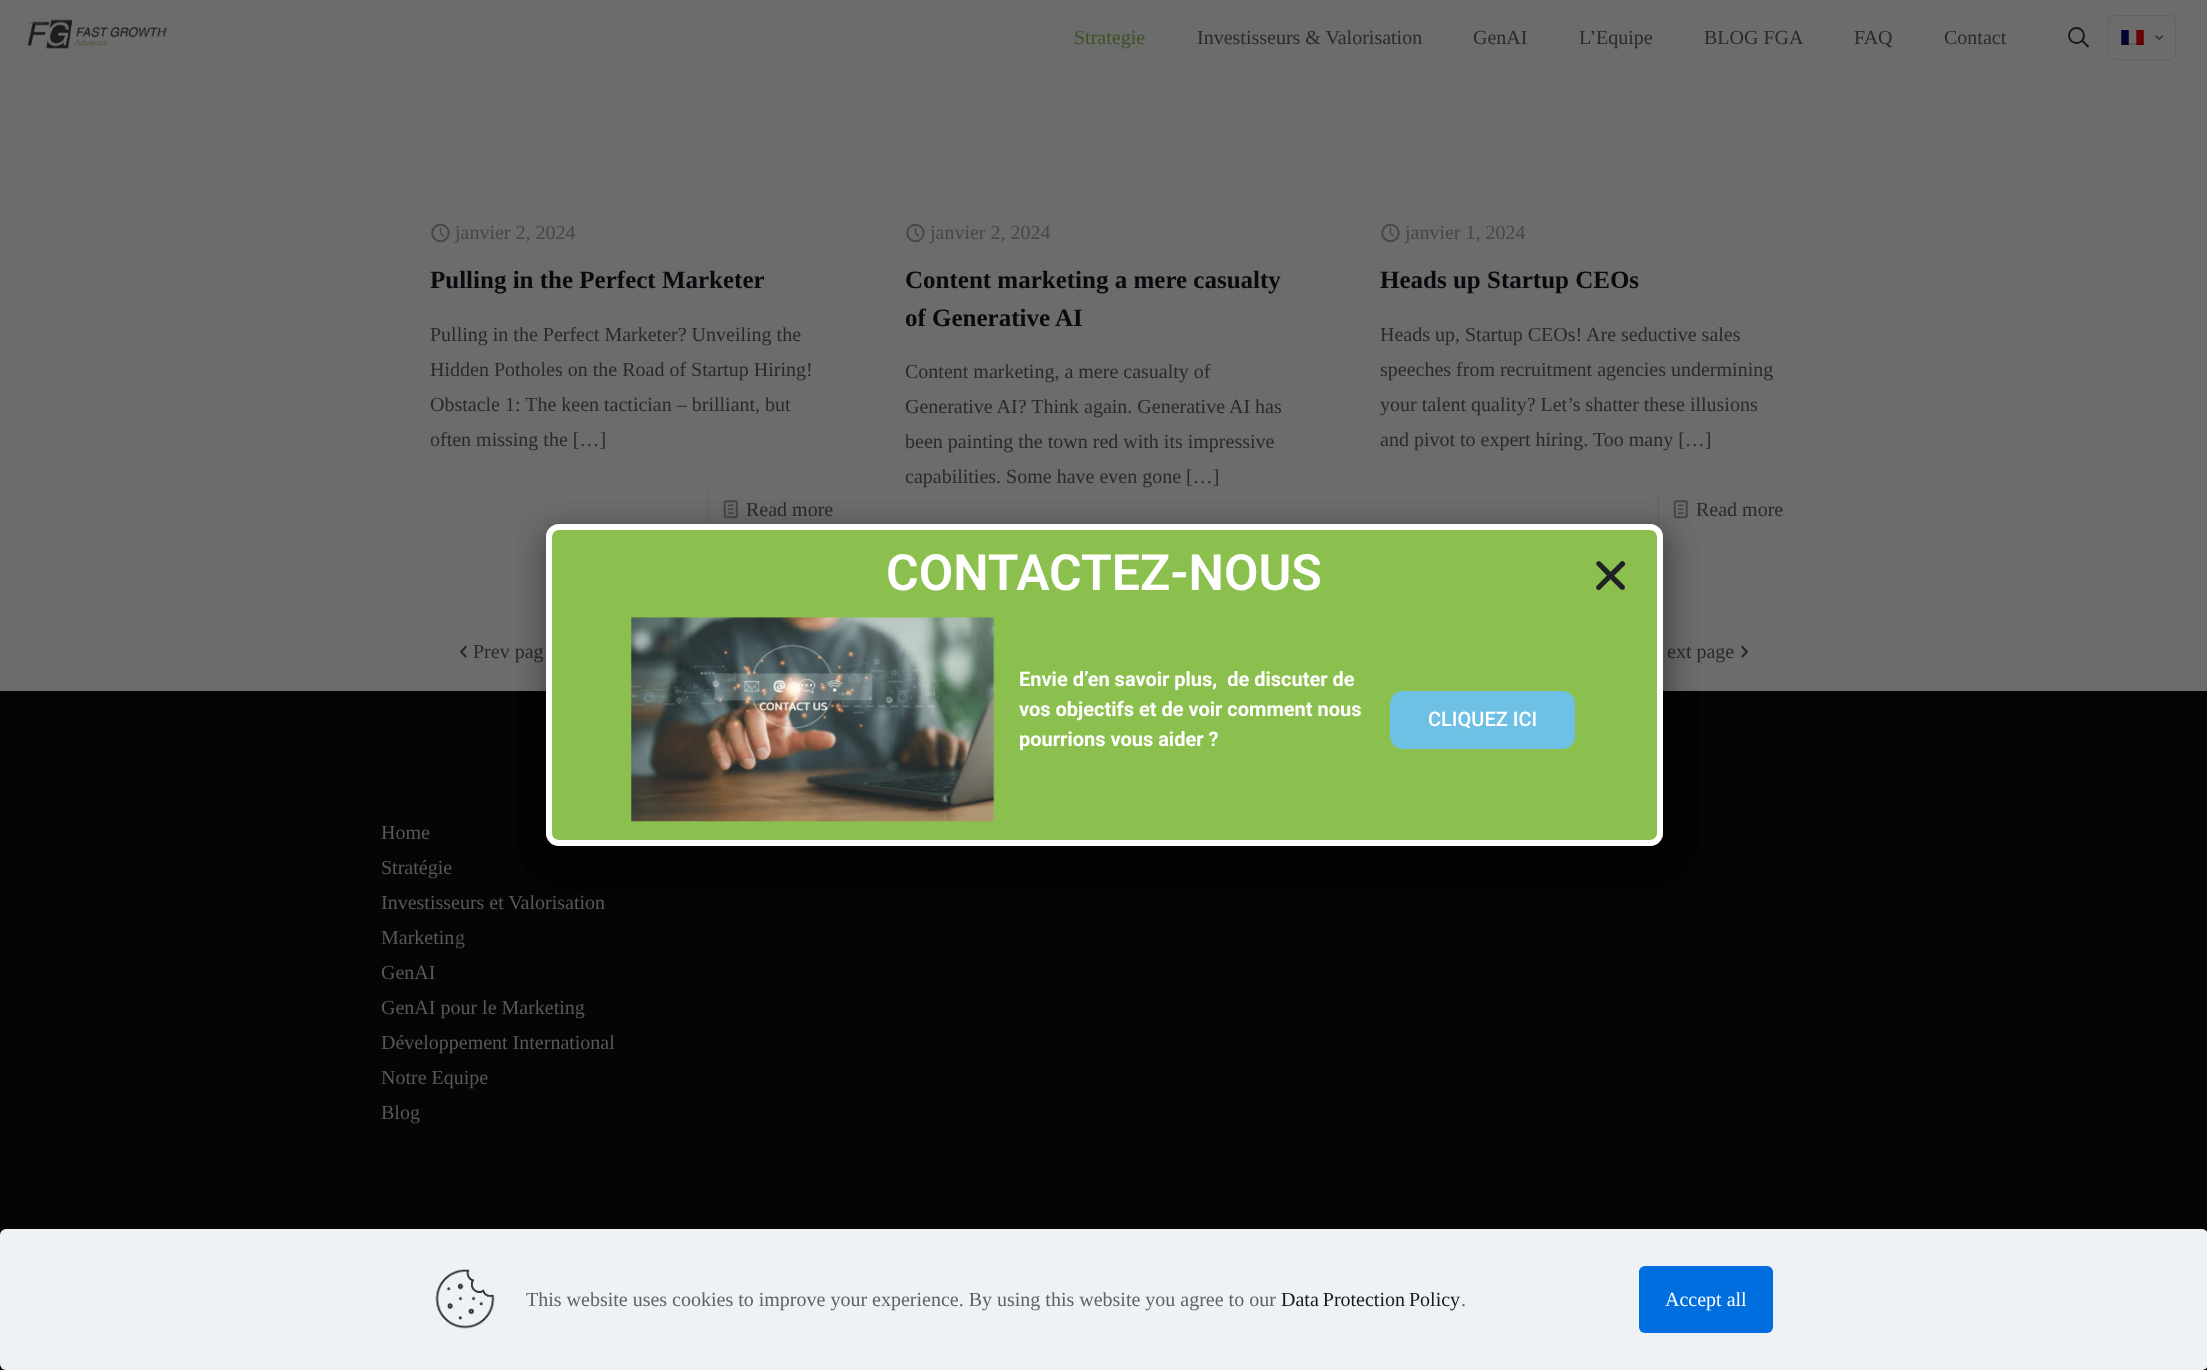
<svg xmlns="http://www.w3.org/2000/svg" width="2207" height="1370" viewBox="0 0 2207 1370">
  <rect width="100%" height="100%" fill="rgb(108,108,108)"/>
  <image x="27" y="19" width="140" height="30" href="pic1.png"/>
  <rect x="1170" y="0" width="1" height="75" fill="rgb(105,105,105)"/>
  <text x="1074" y="44" font-family="Liberation Serif" font-size="20" fill="rgb(60,82,35)">Strategie</text>
  <rect x="1446" y="0" width="1" height="75" fill="rgb(105,105,105)"/>
  <text x="1197" y="44" font-family="Liberation Serif" font-size="20" fill="rgb(42,42,42)">Investisseurs &amp; Valorisation</text>
  <rect x="1553" y="0" width="1" height="75" fill="rgb(105,105,105)"/>
  <text x="1473" y="44" font-family="Liberation Serif" font-size="20" fill="rgb(42,42,42)">GenAI</text>
  <rect x="1678" y="0" width="1" height="75" fill="rgb(105,105,105)"/>
  <text x="1579" y="44" font-family="Liberation Serif" font-size="20" fill="rgb(42,42,42)">L’Equipe</text>
  <rect x="1828" y="0" width="1" height="75" fill="rgb(105,105,105)"/>
  <text x="1704" y="44" font-family="Liberation Serif" font-size="20" fill="rgb(42,42,42)">BLOG FGA</text>
  <rect x="1918" y="0" width="1" height="75" fill="rgb(105,105,105)"/>
  <g font-family="Liberation Serif" font-size="20" fill="rgb(42,42,42)">
    <text x="1854" y="44">FAQ</text>
    <text x="1944" y="44">Contact</text>
  </g>
  <circle cx="2076.5" cy="35.5" r="7.5" fill="none" stroke="rgb(24,24,24)" stroke-width="1.9"/>
  <path d="M2082 40.5L2088.5 47" fill="none" stroke="rgb(24,24,24)" stroke-width="1.9"/>
  <rect x="2108.5" y="15.5" width="67" height="44" rx="5.5" fill="none" stroke="rgb(98,98,98)"/>
  <image x="2121" y="30" width="23" height="15" href="pic2.png"/>
  <image x="2155" y="35" width="9" height="5" href="pic3.png"/>
  <image x="431" y="223" width="19" height="20" href="pic4.png"/>
  <text x="455" y="239" font-family="Liberation Serif" font-size="20" fill="rgb(71,71,71)">janvier 2, 2024</text>
  <text x="430" y="288" font-family="Liberation Serif" font-size="25" font-weight="bold" fill="rgb(9,10,14)">Pulling in the Perfect Marketer</text>
  <g font-family="Liberation Serif" font-size="20" fill="rgb(42,42,42)">
    <text>
      <tspan x="430" y="341">Pulling in the Perfect Marketer? Unveiling the</tspan>
      <tspan x="430" y="376">Hidden Potholes on the Road of Startup Hiring!</tspan>
      <tspan x="430" y="411">Obstacle 1: The keen tactician – brilliant, but</tspan>
      <tspan x="430" y="446">often missing the […]</tspan>
    </text>
  </g>
  <rect x="708" y="491" width="1" height="38" fill="rgb(99,99,99)"/>
  <image x="723" y="500" width="15" height="19" href="pic5.png"/>
  <text x="746" y="516" font-family="Liberation Serif" font-size="20" fill="rgb(42,42,42)">Read more</text>
  <image x="906" y="223" width="19" height="20" href="pic4.png"/>
  <text x="930" y="239" font-family="Liberation Serif" font-size="20" fill="rgb(71,71,71)">janvier 2, 2024</text>
  <g font-family="Liberation Serif" font-size="25" font-weight="bold" fill="rgb(9,10,14)">
    <text>
      <tspan x="905" y="288">Content marketing a mere casualty</tspan>
      <tspan x="905" y="326">of Generative AI</tspan>
    </text>
  </g>
  <g font-family="Liberation Serif" font-size="20" fill="rgb(42,42,42)">
    <text>
      <tspan x="905" y="378">Content marketing, a mere casualty of</tspan>
      <tspan x="905" y="413">Generative AI? Think again. Generative AI has</tspan>
      <tspan x="905" y="448">been painting the town red with its impressive</tspan>
      <tspan x="905" y="483">capabilities. Some have even gone […]</tspan>
    </text>
  </g>
  <image x="1381" y="223" width="19" height="20" href="pic4.png"/>
  <text x="1405" y="239" font-family="Liberation Serif" font-size="20" fill="rgb(71,71,71)">janvier 1, 2024</text>
  <text x="1380" y="288" font-family="Liberation Serif" font-size="25" font-weight="bold" fill="rgb(9,10,14)">Heads up Startup CEOs</text>
  <g font-family="Liberation Serif" font-size="20" fill="rgb(42,42,42)">
    <text>
      <tspan x="1380" y="341">Heads up, Startup CEOs! Are seductive sales</tspan>
      <tspan x="1380" y="376">speeches from recruitment agencies undermining</tspan>
      <tspan x="1380" y="411">your talent quality? Let’s shatter these illusions</tspan>
      <tspan x="1380" y="446">and pivot to expert hiring. Too many […]</tspan>
    </text>
  </g>
  <rect x="1658" y="491" width="1" height="38" fill="rgb(99,99,99)"/>
  <image x="1673" y="500" width="15" height="19" href="pic5.png"/>
  <text x="1696" y="516" font-family="Liberation Serif" font-size="20" fill="rgb(42,42,42)">Read more</text>
  <image x="460" y="645" width="7" height="13" href="pic6.png"/>
  <g font-family="Liberation Serif" font-size="20" fill="rgb(42,42,42)">
    <text x="473" y="658">Prev pag</text>
    <text x="1667" y="658">ext page</text>
  </g>
  <image x="1741" y="645" width="7" height="13" href="pic7.png"/>
  <rect x="0" y="691" width="2207" height="679" fill="rgb(5,5,5)"/>
  <g font-family="Liberation Serif" font-size="20" fill="rgb(88,88,88)">
    <text>
      <tspan x="381" y="839">Home</tspan>
      <tspan x="381" y="874">Stratégie</tspan>
      <tspan x="381" y="909">Investisseurs et Valorisation</tspan>
      <tspan x="381" y="944">Marketin</tspan>
    </text>
  </g>
  <text x="455" y="944" font-family="Liberation Serif" font-size="20" fill="rgb(79,79,79)">g</text>
  <g font-family="Liberation Serif" font-size="20" fill="rgb(88,88,88)">
    <text>
      <tspan x="381" y="979">GenAI</tspan>
      <tspan x="381" y="1014">GenAI pour le Marketing</tspan>
      <tspan x="381" y="1049">Développement International</tspan>
      <tspan x="381" y="1084">Notre Equipe</tspan>
      <tspan x="381" y="1119">Blog</tspan>
    </text>
  </g>
  <rect x="545" y="530" width="1124" height="330" rx="16" fill="rgba(0,0,0,0.2)" filter="blur(14.5px)"/>
  <rect x="549" y="527" width="1111" height="316" rx="10" fill="none" stroke="rgb(166,166,166)" stroke-width="6"/>
  <rect x="545" y="530" width="1124" height="330" rx="16" fill="rgba(0,0,0,0.2)" filter="blur(14.5px)"/>
  <rect x="549" y="527" width="1111" height="316" rx="10" fill="rgb(140,192,78)" stroke="rgb(255,255,255)" stroke-width="6"/>
  <text x="886" y="590" font-family="Roboto" font-size="50" font-weight="600" fill="rgb(255,255,255)">CONTACTEZ-NOUS</text>
  <image x="631" y="617" width="364" height="205" href="pic8.png"/>
  <g font-family="Roboto" font-size="20" font-weight="bold" fill="rgb(255,255,255)">
    <text xml:space="preserve"><tspan x="1019" y="686">Envie d’en savoir plus,  de discuter de</tspan><tspan x="1019" y="716">vos objectifs et de voir comment nous</tspan><tspan x="1019" y="746">pourrions vous aider ?</tspan></text>
  </g>
  <rect x="1390" y="691" width="185" height="58" rx="13" fill="rgb(110,193,228)"/>
  <text x="1428" y="726" font-family="Roboto" font-size="20" font-weight="500" fill="rgb(255,255,255)">CLIQUEZ ICI</text>
  <image x="1596" y="561" width="30" height="30" href="pic9.png"/>
  <rect x="0" y="1229" width="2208" height="141" rx="6" fill="rgb(238,242,245)"/>
  <image x="435" y="1269" width="60" height="60" href="pic10.png"/>
  <text x="526" y="1306" font-family="Liberation Serif" font-size="20" fill="rgb(98,98,98)">This website uses cookies to improve your experience. By using this website you agree to our</text>
  <text x="1281" y="1306" word-spacing="-1" font-family="Liberation Serif" font-size="20" fill="rgb(22,25,34)">Data Protection Policy</text>
  <text x="1461" y="1306" font-family="Liberation Serif" font-size="20" fill="rgb(98,98,98)">.</text>
  <rect x="1639" y="1266" width="134" height="67" rx="6" fill="rgb(0,110,223)"/>
  <text x="1665" y="1306" font-family="Liberation Serif" font-size="20" fill="rgb(255,255,255)">Accept all</text>
</svg>
